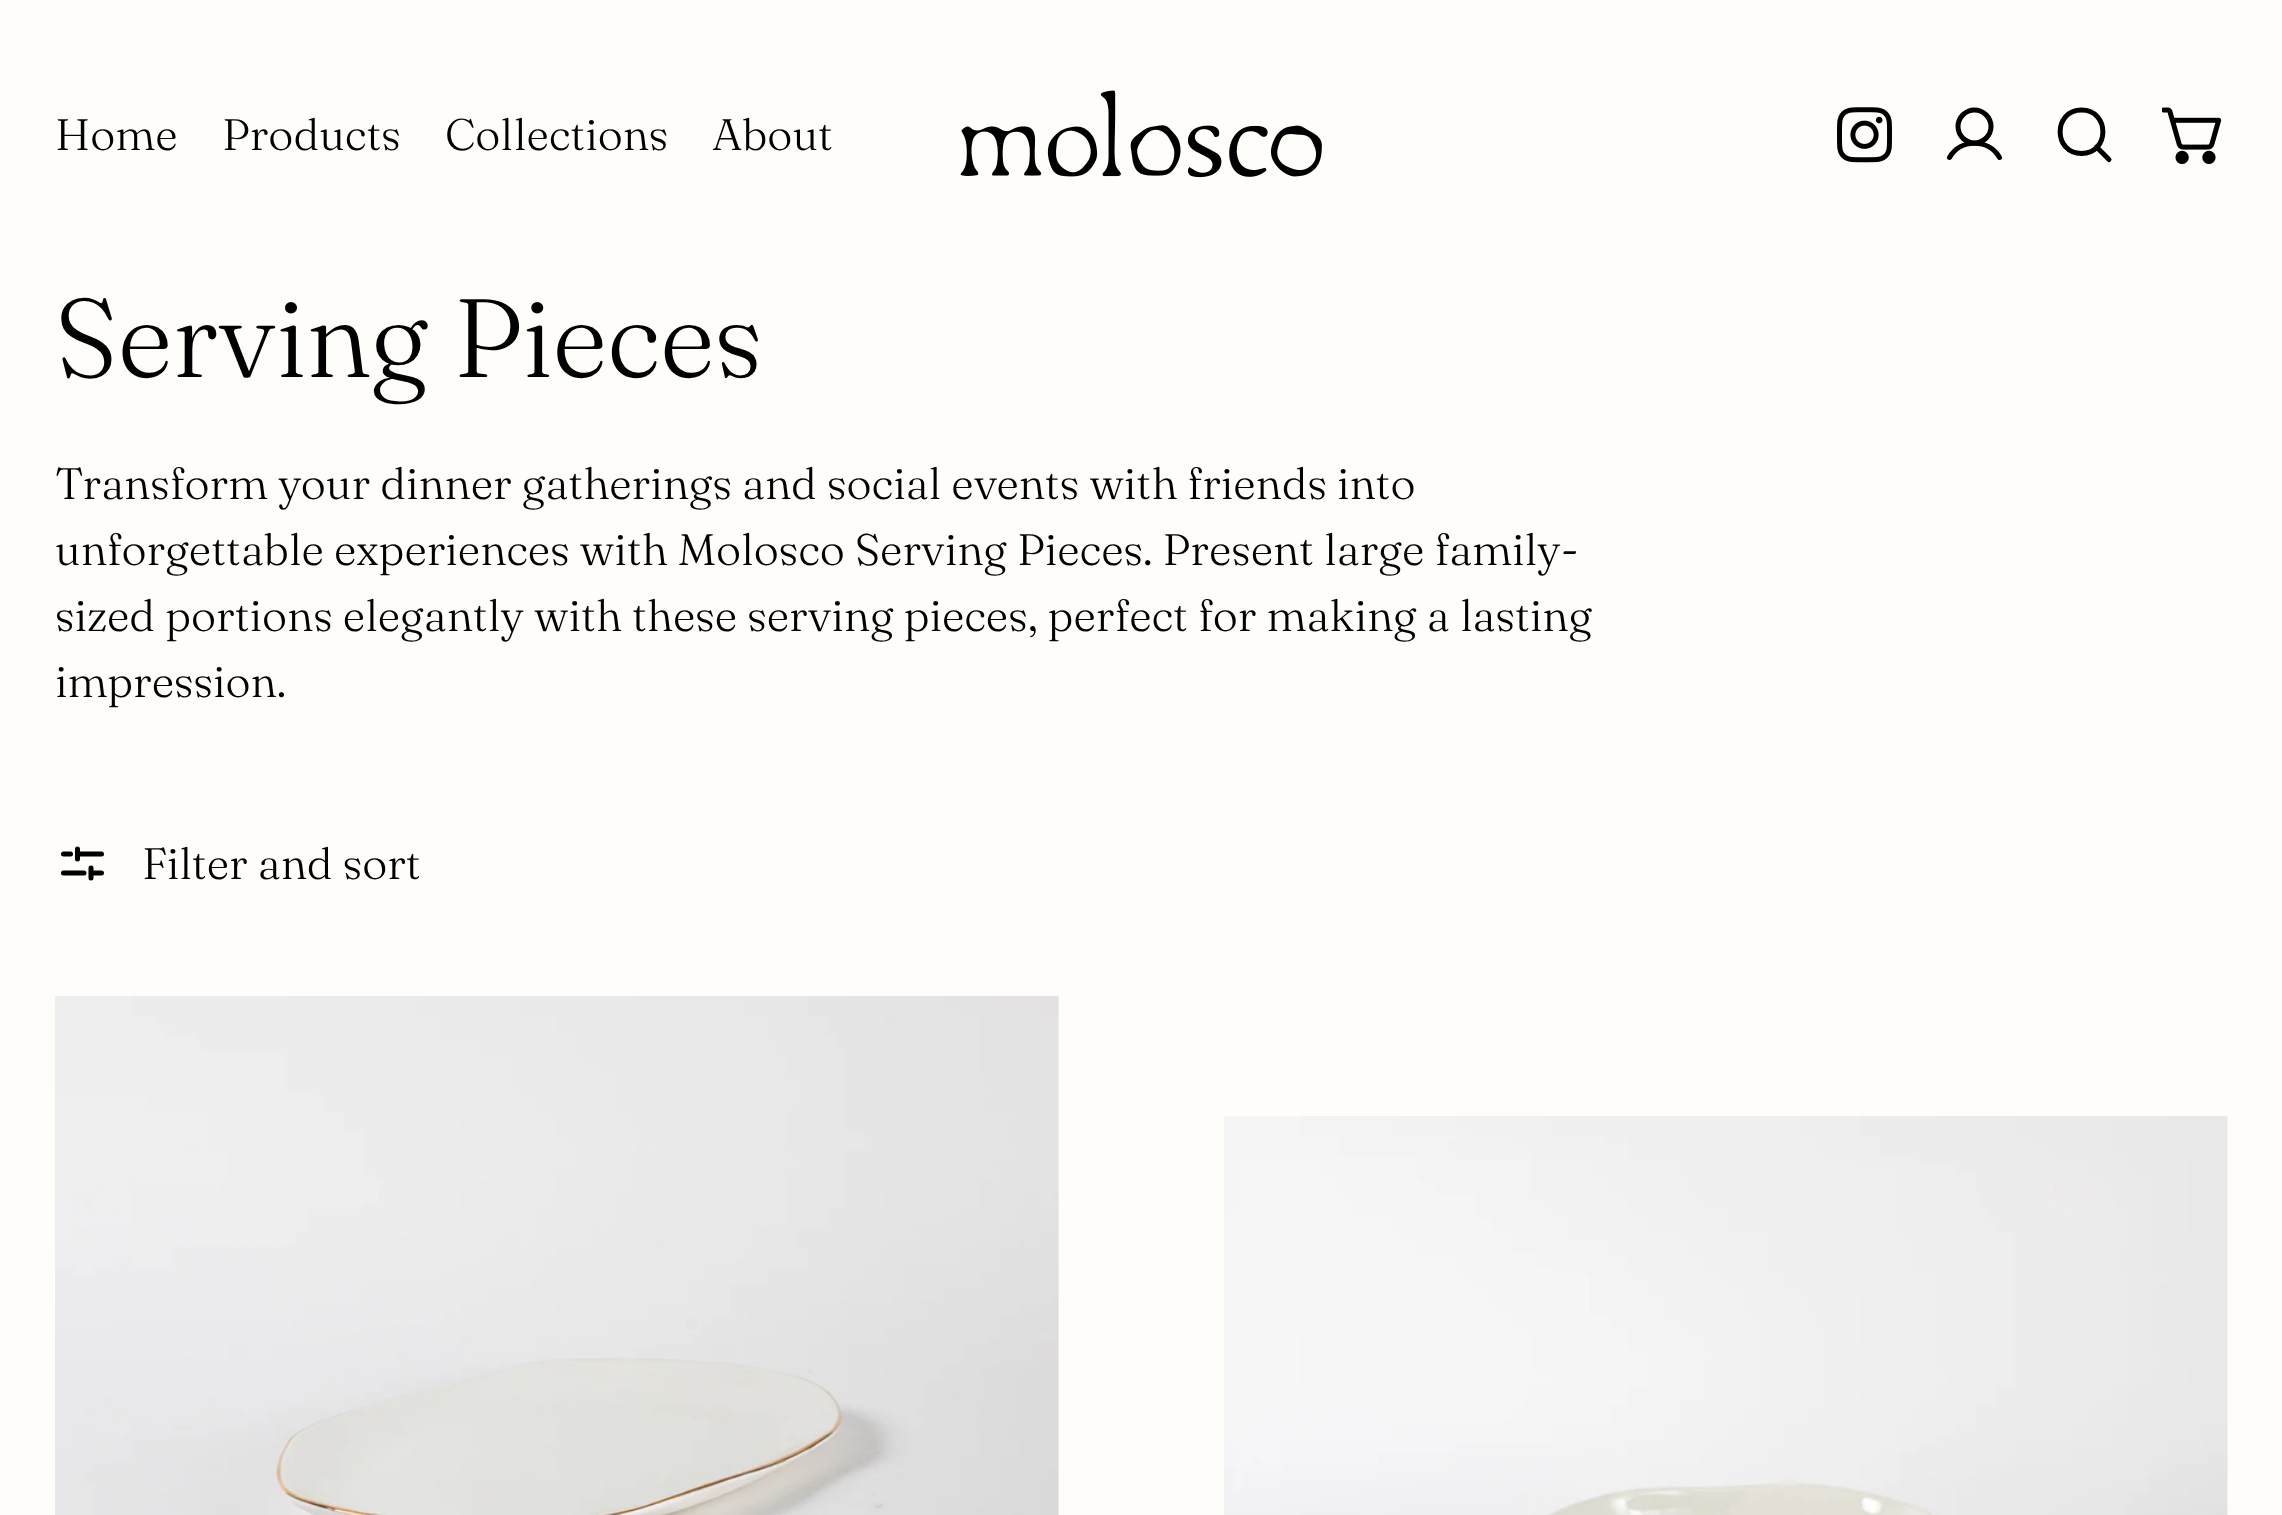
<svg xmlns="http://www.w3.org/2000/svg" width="2282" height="1515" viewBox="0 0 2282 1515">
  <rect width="100%" height="100%" fill="rgb(255,253,250)"/>
  <g font-family="'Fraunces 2'" font-size="44" font-weight="300" fill="rgb(0,0,0)">
    <text x="55" y="150">Home</text>
    <text x="222" y="150">Products</text>
    <text x="445" y="150">Collections</text>
    <text x="712" y="150">About</text>
  </g>
  <image x="960" y="90" width="362" height="88" href="pic1.png"/>
  <image x="1837" y="107" width="55" height="56" href="pic2.png"/>
  <path d="M1974.5 143C1983.5 143 1991 135.5 1991 126.5C1991 117.5 1983.5 110 1974.5 110C1965.5 110 1958 117.5 1958 126.5C1958 135.5 1965.5 143 1974.5 143Z" fill="none" stroke="rgb(0,0,0)" stroke-width="5"/>
  <path d="M1949.5 157.5C1960.5 138.5 1988.5 138.5 1999.5 157.5" fill="none" stroke="rgb(0,0,0)" stroke-width="5" stroke-linecap="round" stroke-linejoin="round"/>
  <path d="M2081.5 153.5C2110 153.5 2110 110 2081.5 110C2053 110 2053 153.5 2081.5 153.5ZM2096.5 147L2109 159.5" fill="none" stroke="rgb(0,0,0)" stroke-width="5" stroke-linecap="round" stroke-linejoin="round"/>
  <image x="2162" y="107" width="60" height="58" href="pic3.png"/>
  <text x="55" y="377" font-family="Fraunces" font-size="111" font-weight="300" fill="rgb(0,0,0)">Serving Pieces</text>
  <g font-family="'Fraunces 2'" font-size="44" font-weight="300" fill="rgb(0,0,0)">
    <text>
      <tspan x="55" y="499">Transform your dinner gatherings and social events with friends into</tspan>
      <tspan x="55" y="565">unforgettable experiences with Molosco Serving Pieces. Present large family-</tspan>
      <tspan x="55" y="631">sized portions elegantly with these serving pieces, perfect for making a lasting</tspan>
      <tspan x="55" y="697">impression.</tspan>
    </text>
  </g>
  <path d="M84 873H63.5M101.5 873H91M70.5 854H63.5M101.5 854H77.5M77.5 849V859M91 878V868" fill="none" stroke="rgb(0,0,0)" stroke-width="5" stroke-linecap="round" stroke-linejoin="round"/>
  <text x="142" y="879" font-family="'Fraunces 2'" font-size="44" font-weight="300" fill="rgb(0,0,0)">Filter and sort</text>
  <image x="55" y="996" width="1004" height="519" href="pic4.png"/>
  <image x="1224" y="1116" width="1004" height="399" href="pic5.png"/>
</svg>
